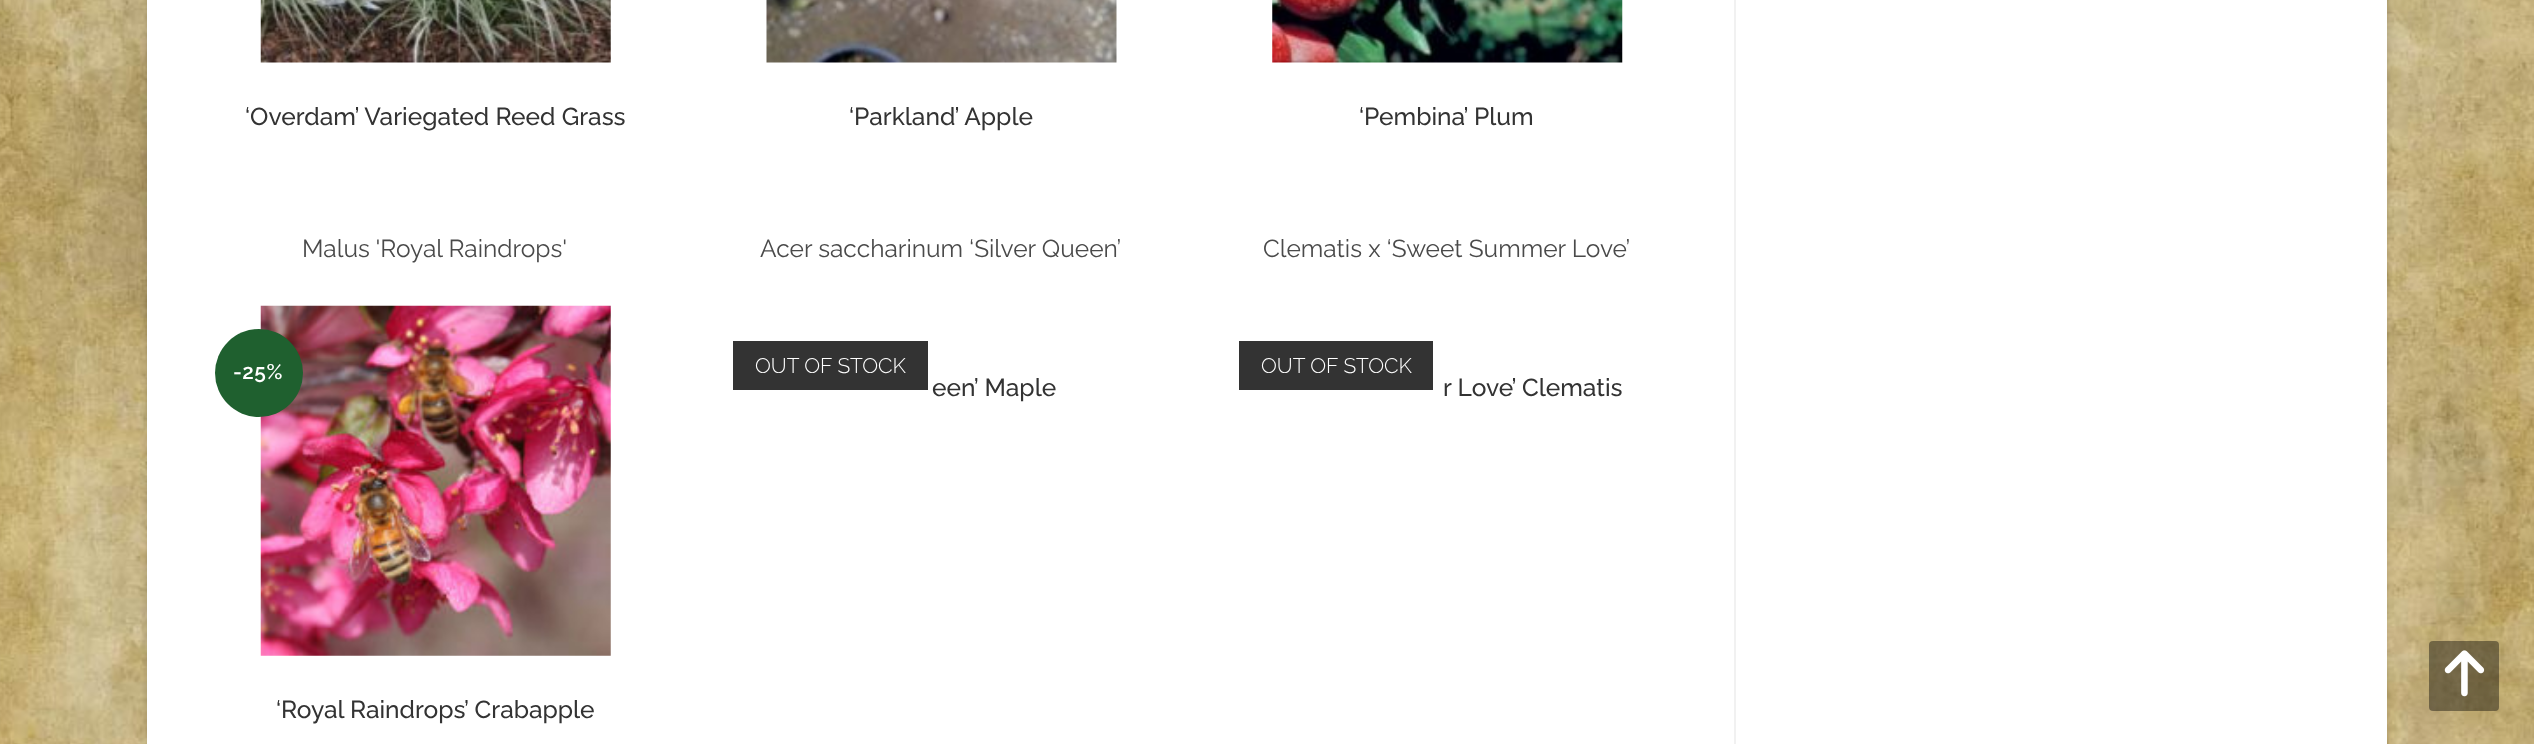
<svg xmlns="http://www.w3.org/2000/svg" width="2534" height="744" viewBox="0 0 2534 744">
  <rect width="100%" height="100%" fill="rgb(255,255,255)"/>
  <image x="0" y="0" width="2534" height="744" href="pic1.png"/>
  <rect x="147" y="-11" width="2240" height="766" fill="rgba(0,0,0,0.15)" filter="blur(3.5px)"/>
  <rect x="147" y="0" width="2240" height="744" fill="rgb(255,255,255)"/>
  <rect x="1734" y="0" width="2" height="744" fill="rgb(241,241,241)"/>
  <image x="260" y="0" width="351" height="63" href="pic2.png"/>
  <text x="245" y="125" font-family="Raleway" font-size="24.5" font-weight="500" fill="rgb(51,51,51)">‘Overdam’ Variegated Reed Grass</text>
  <image x="766" y="0" width="351" height="63" href="pic3.png"/>
  <text x="849" y="125" font-family="Raleway" font-size="24.5" font-weight="500" fill="rgb(51,51,51)">‘Parkland’ Apple</text>
  <image x="1272" y="0" width="351" height="63" href="pic4.png"/>
  <text x="1359" y="125" font-family="Raleway" font-size="24.5" font-weight="500" fill="rgb(51,51,51)">‘Pembina’ Plum</text>
  <text x="302" y="257" font-family="Raleway" font-size="24.5" fill="rgb(74,74,74)">Malus 'Royal Raindrops'</text>
  <image x="260" y="305" width="351" height="351" href="pic5.png"/>
  <circle cx="259" cy="373" r="44" fill="rgb(31,96,47)"/>
  <text x="233" y="379" font-family="Raleway" font-size="21" font-weight="600" letter-spacing="0.5" fill="rgb(255,255,255)">-25%</text>
  <text x="276" y="718" font-family="Raleway" font-size="24.5" font-weight="500" fill="rgb(51,51,51)">‘Royal Raindrops’ Crabapple</text>
  <text x="760" y="257" font-family="Raleway" font-size="24.5" fill="rgb(74,74,74)">Acer saccharinum ‘Silver Queen’</text>
  <rect x="733" y="341" width="195" height="49" fill="rgba(0,0,0,0.8)"/>
  <text x="755" y="373" font-family="Raleway" font-size="21" font-weight="300" fill="rgb(255,255,255)">OUT OF STOCK</text>
  <text x="932" y="396" font-family="Raleway" font-size="24.5" font-weight="500" fill="rgb(51,51,51)">een’ Maple</text>
  <text x="1263" y="257" font-family="Raleway" font-size="24.5" fill="rgb(74,74,74)">Clematis x ‘Sweet Summer Love’</text>
  <rect x="1239" y="341" width="194" height="49" fill="rgba(0,0,0,0.8)"/>
  <text x="1261" y="373" font-family="Raleway" font-size="21" font-weight="300" fill="rgb(255,255,255)">OUT OF STOCK</text>
  <text x="1443" y="396" font-family="Raleway" font-size="24.5" font-weight="500" fill="rgb(51,51,51)">r Love’ Clematis</text>
  <rect x="2429" y="641" width="70" height="70" rx="4" fill="rgba(0,0,0,0.4)"/>
  <image x="2444" y="650" width="41" height="47" href="pic6.png"/>
</svg>
